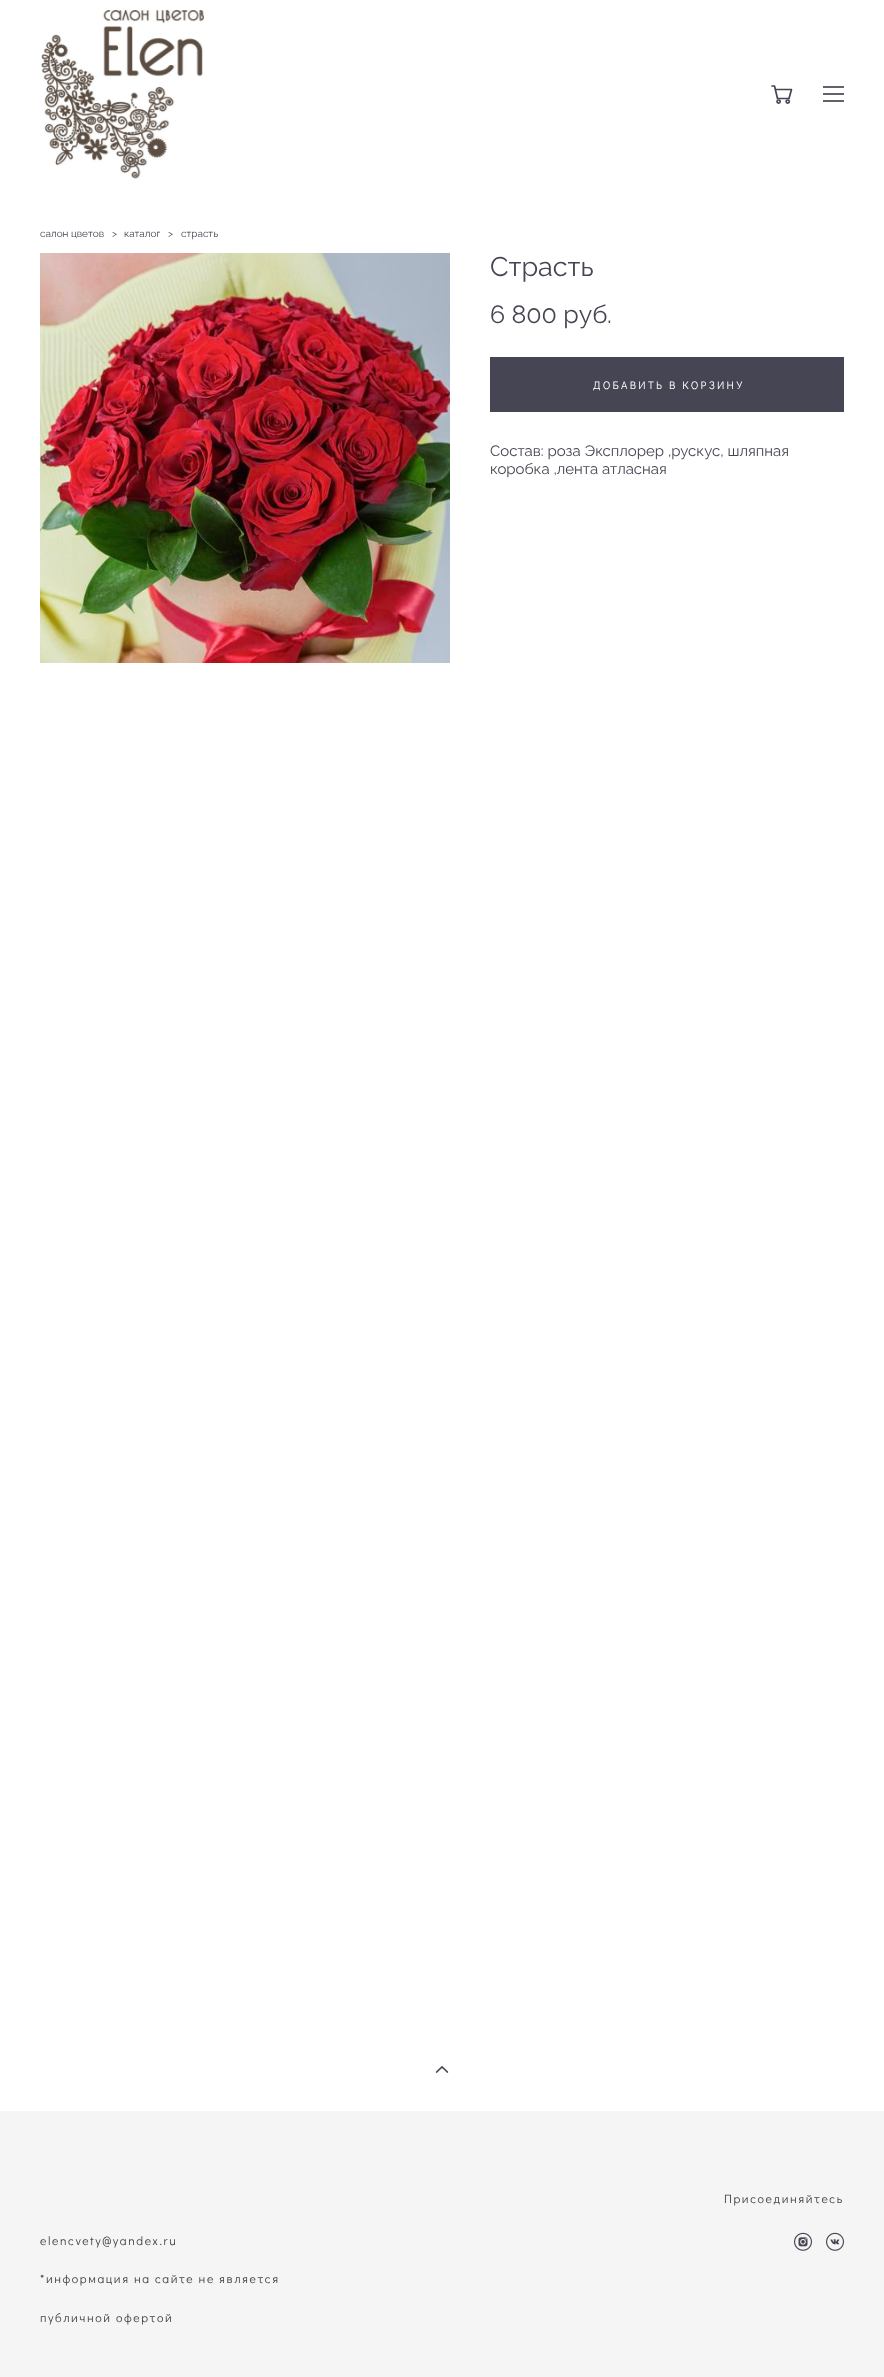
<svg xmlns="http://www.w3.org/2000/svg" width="884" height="2377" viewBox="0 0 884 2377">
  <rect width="100%" height="100%" fill="rgb(255,255,255)"/>
  <image x="41" y="10" width="163" height="169" href="pic1.png"/>
  <path d="M772 86H774.5L777.5 98.5H789L791.5 89.5H776" fill="none" stroke="rgb(70,69,83)" stroke-width="1.7" stroke-linecap="round" stroke-linejoin="round"/>
  <circle cx="778.6" cy="101.6" r="1.6" fill="none" stroke="rgb(70,69,83)" stroke-width="1.7"/>
  <circle cx="787.7" cy="101.6" r="1.6" fill="none" stroke="rgb(70,69,83)" stroke-width="1.7"/>
  <rect x="823" y="86" width="21" height="2" fill="rgb(98,97,109)"/>
  <rect x="823" y="93" width="21" height="2" fill="rgb(98,97,109)"/>
  <rect x="823" y="100" width="21" height="2" fill="rgb(98,97,109)"/>
  <g font-family="Raleway" font-size="10" fill="rgb(70,69,83)">
    <text x="40" y="237">салон цветов</text>
    <text x="112" y="237">&gt;</text>
    <text x="124" y="237">каталог</text>
    <text x="168" y="237">&gt;</text>
    <text x="181" y="237">страсть</text>
  </g>
  <image x="40" y="253" width="410" height="410" href="pic2.png"/>
  <text x="490" y="276" font-family="Raleway" font-size="27" fill="rgb(70,69,83)">Страсть</text>
  <text x="490" y="323" font-family="Raleway" font-size="25" fill="rgb(70,69,83)">6 800 pуб.</text>
  <rect x="490" y="357" width="354" height="55" fill="rgb(70,69,83)"/>
  <text x="593" y="389" font-family="Didact Gothic" font-size="11" letter-spacing="2.25" fill="rgb(255,255,255)">ДОБАВИТЬ В КОРЗИНУ</text>
  <g font-family="Raleway" font-size="15" fill="rgb(70,69,83)">
    <text>
      <tspan x="490" y="456">Состав: роза Эксплорер ,рускус, шляпная</tspan>
      <tspan x="490" y="474">коробка ,лента атласная</tspan>
    </text>
  </g>
  <image x="435" y="2065" width="14" height="8" href="pic3.png"/>
  <rect x="0" y="2111" width="884" height="266" fill="rgb(245,245,245)"/>
  <text x="724" y="2203" font-family="Didact Gothic" font-size="12.1" letter-spacing="1.6" fill="rgb(66,66,66)">Присоединяйтесь</text>
  <image x="794" y="2232" width="18" height="19" href="pic4.png"/>
  <image x="826" y="2232" width="18" height="19" href="pic5.png"/>
  <g font-family="Didact Gothic" font-size="12.1" letter-spacing="1.6" fill="rgb(66,66,66)">
    <text x="40" y="2245">elencvety@yandex.ru</text>
    <text x="40" y="2283">*информация на сайте не является</text>
    <text x="40" y="2322">публичной офертой</text>
  </g>
</svg>
